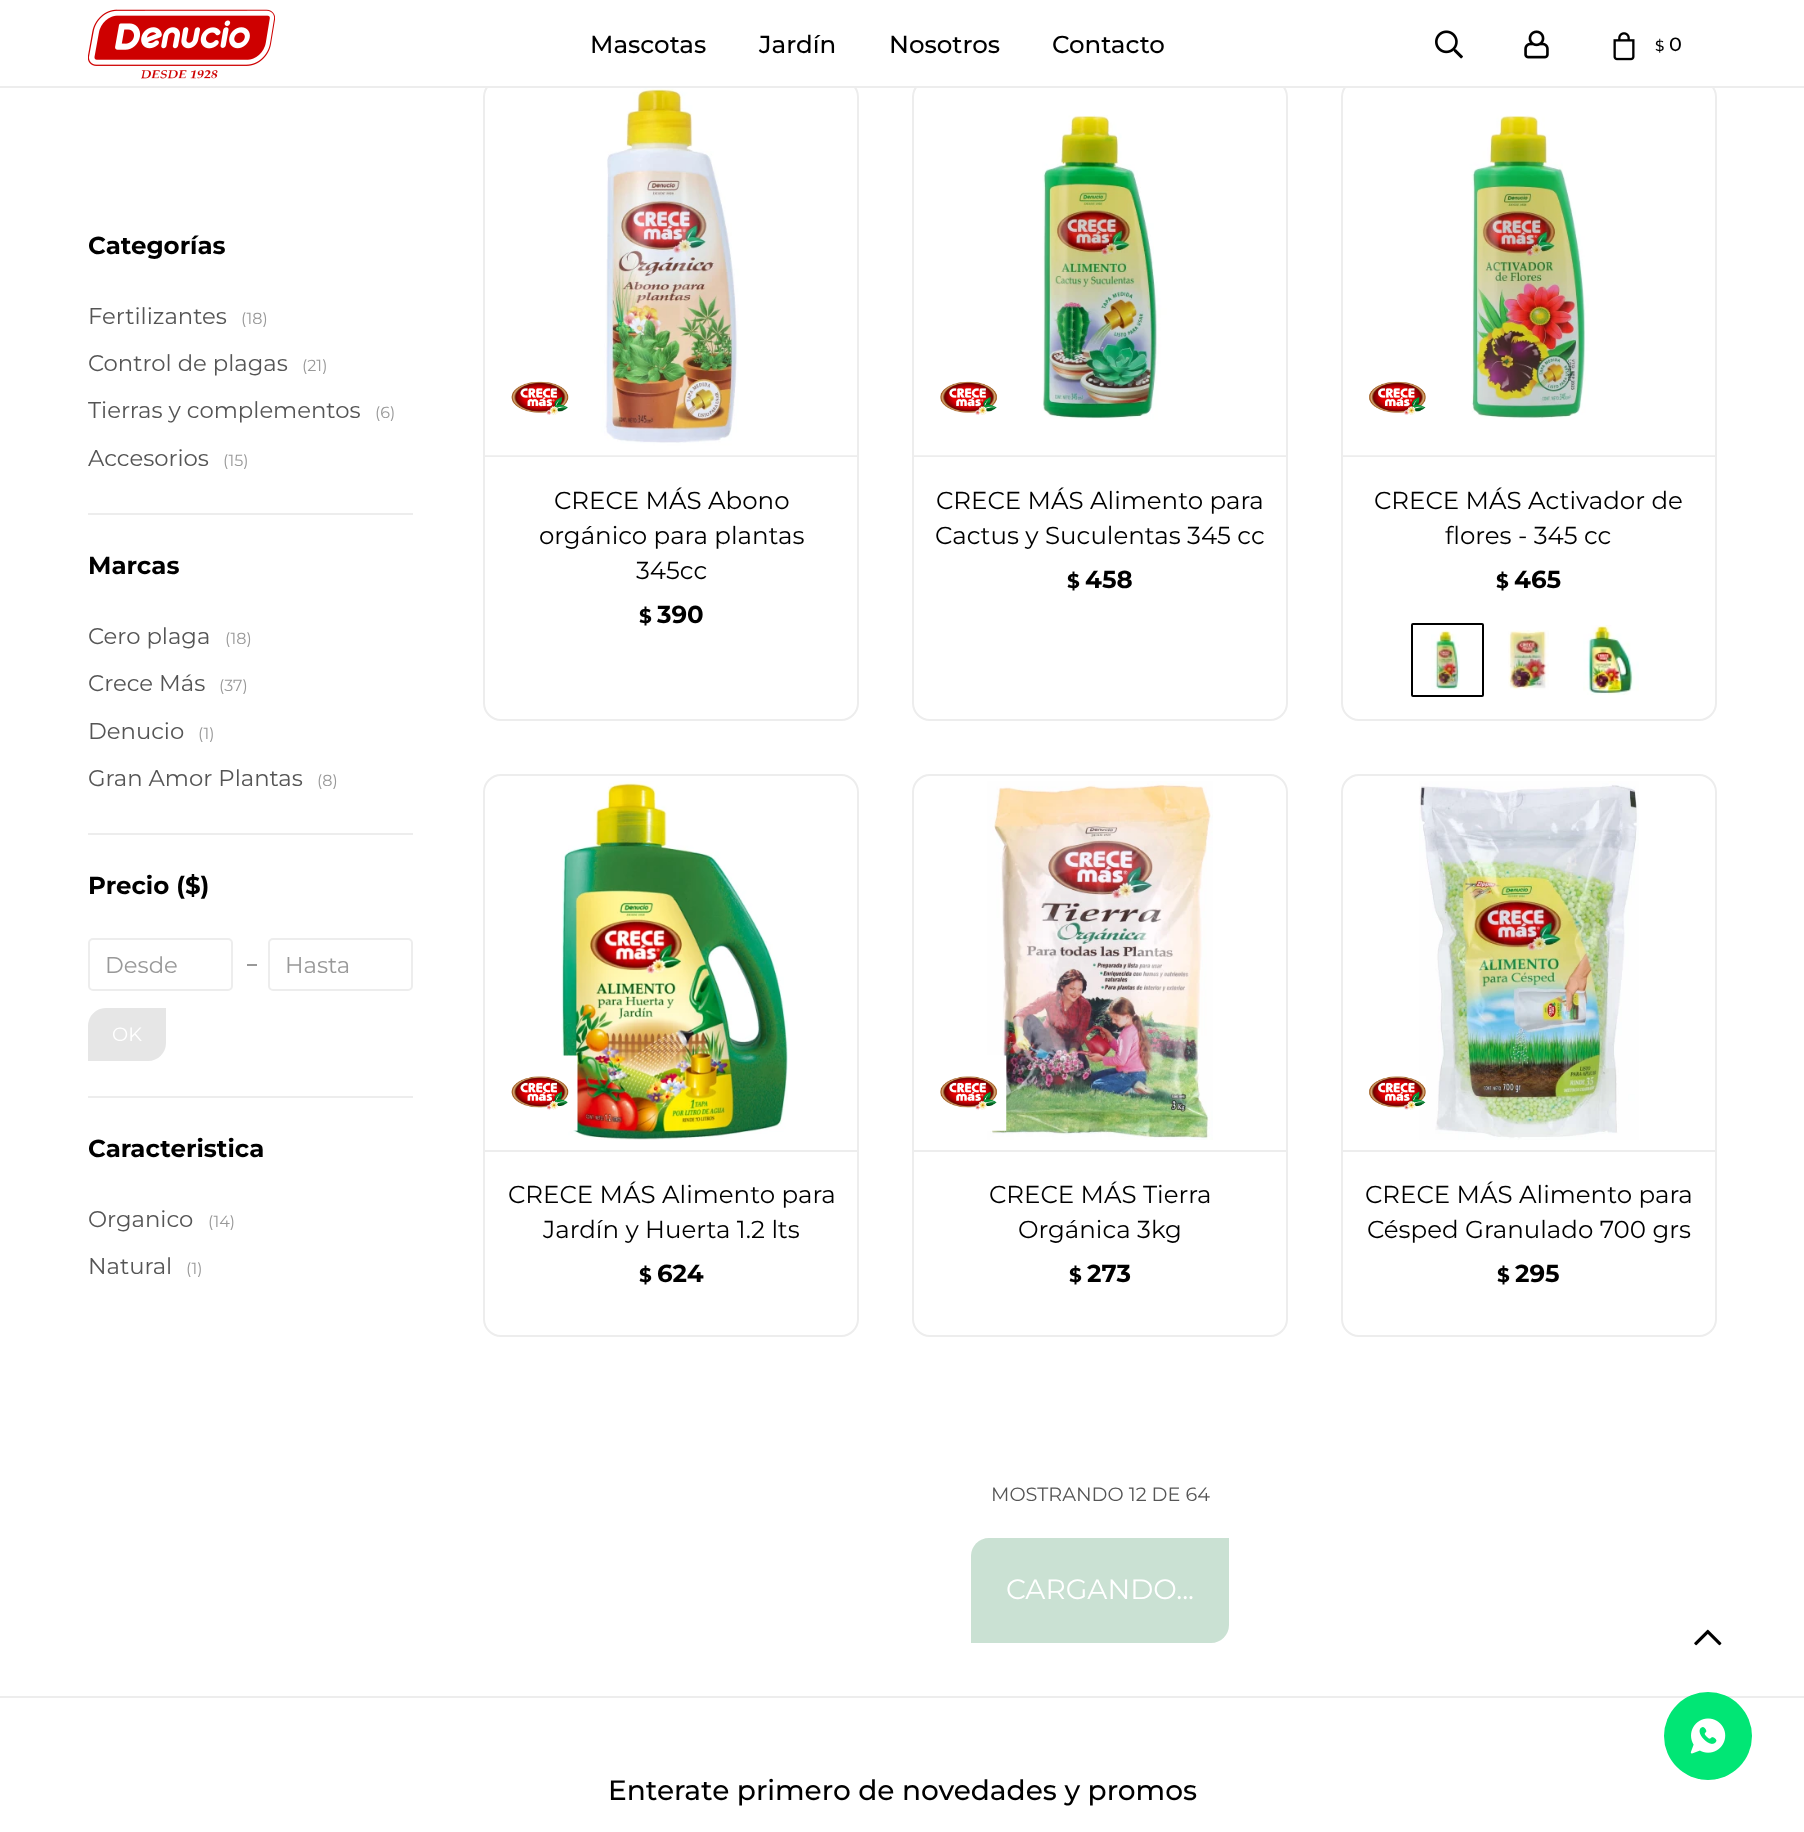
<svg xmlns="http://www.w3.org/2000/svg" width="1804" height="1832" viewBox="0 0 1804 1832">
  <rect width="100%" height="100%" fill="rgb(255,255,255)"/>
  <image x="88" y="9" width="187" height="70" href="pic1.png"/>
  <g font-family="Montserrat" font-size="24.5" font-weight="500" fill="rgb(0,0,0)">
    <text x="590" y="53">Mascotas</text>
    <text x="759" y="53">Jardín</text>
    <text x="889" y="53">Nosotros</text>
    <text x="1052" y="53">Contacto</text>
  </g>
  <image x="1435" y="30" width="28" height="29" href="pic2.png"/>
  <image x="1524" y="30" width="25" height="29" href="pic3.png"/>
  <image x="1613" y="32" width="22" height="29" href="pic4.png"/>
  <text x="1655" y="51" font-family="Montserrat" font-size="15" font-weight="500" fill="rgb(0,0,0)">$</text>
  <text x="1669" y="51" font-family="Montserrat" font-size="19.25" font-weight="500" fill="rgb(0,0,0)">0</text>
  <rect x="483" y="455" width="376" height="2" fill="rgb(237,237,237)"/>
  <image x="483" y="88" width="376" height="368" href="pic5.png"/>
  <image x="511" y="381" width="58" height="34" href="pic6.png"/>
  <rect x="484" y="80" width="374" height="640" rx="17" fill="none" stroke="rgb(237,237,237)" stroke-width="2"/>
  <rect x="912" y="455" width="376" height="2" fill="rgb(237,237,237)"/>
  <image x="914" y="115" width="372" height="341" href="pic7.png"/>
  <image x="940" y="381" width="58" height="34" href="pic8.png"/>
  <rect x="913" y="80" width="374" height="640" rx="17" fill="none" stroke="rgb(237,237,237)" stroke-width="2"/>
  <rect x="1341" y="455" width="376" height="2" fill="rgb(237,237,237)"/>
  <image x="1343" y="115" width="372" height="341" href="pic9.png"/>
  <image x="1369" y="381" width="57" height="34" href="pic10.png"/>
  <image x="1431" y="630" width="29" height="60" href="pic11.png"/>
  <rect x="1412" y="624" width="71" height="72" rx="1" fill="none" stroke="rgb(0,0,0)" stroke-width="2"/>
  <image x="1508" y="630" width="41" height="60" href="pic12.png"/>
  <image x="1583" y="625" width="56" height="70" href="pic13.png"/>
  <rect x="1342" y="80" width="374" height="640" rx="17" fill="none" stroke="rgb(237,237,237)" stroke-width="2"/>
  <rect x="487" y="79" width="1226" height="7" fill="rgb(255,255,255)"/>
  <rect x="0" y="86" width="1804" height="2" fill="rgb(237,237,237)"/>
  <text x="88" y="254" font-family="Montserrat" font-size="24.5" font-weight="bold" fill="rgb(0,0,0)">Categorías</text>
  <text x="88" y="324" font-family="Montserrat" font-size="22.75" fill="rgb(85,85,85)">Fertilizantes</text>
  <text x="241" y="324" font-family="Montserrat" font-size="16" fill="rgb(153,153,153)">(18)</text>
  <text x="88" y="371" font-family="Montserrat" font-size="22.75" fill="rgb(85,85,85)">Control de plagas</text>
  <text x="302" y="371" font-family="Montserrat" font-size="16" fill="rgb(153,153,153)">(21)</text>
  <text x="88" y="418" font-family="Montserrat" font-size="22.75" fill="rgb(85,85,85)">Tierras y complementos</text>
  <text x="375" y="418" font-family="Montserrat" font-size="16" fill="rgb(153,153,153)">(6)</text>
  <text x="88" y="466" font-family="Montserrat" font-size="22.75" fill="rgb(85,85,85)">Accesorios</text>
  <text x="223" y="466" font-family="Montserrat" font-size="16" fill="rgb(153,153,153)">(15)</text>
  <rect x="88" y="513" width="325" height="2" fill="rgb(237,237,237)"/>
  <text x="88" y="574" font-family="Montserrat" font-size="24.5" font-weight="bold" fill="rgb(0,0,0)">Marcas</text>
  <text x="88" y="644" font-family="Montserrat" font-size="22.75" fill="rgb(85,85,85)">Cero plaga</text>
  <text x="225" y="644" font-family="Montserrat" font-size="16" fill="rgb(153,153,153)">(18)</text>
  <text x="88" y="691" font-family="Montserrat" font-size="22.75" fill="rgb(85,85,85)">Crece Más</text>
  <text x="219" y="691" font-family="Montserrat" font-size="16" fill="rgb(153,153,153)">(37)</text>
  <text x="88" y="739" font-family="Montserrat" font-size="22.75" fill="rgb(85,85,85)">Denucio</text>
  <text x="198" y="739" font-family="Montserrat" font-size="16" fill="rgb(153,153,153)">(1)</text>
  <text x="88" y="786" font-family="Montserrat" font-size="22.75" fill="rgb(85,85,85)">Gran Amor Plantas</text>
  <text x="317" y="786" font-family="Montserrat" font-size="16" fill="rgb(153,153,153)">(8)</text>
  <rect x="88" y="833" width="325" height="2" fill="rgb(237,237,237)"/>
  <text x="88" y="894" font-family="Montserrat" font-size="24.5" font-weight="bold" fill="rgb(0,0,0)">Precio ($)</text>
  <rect x="89" y="939" width="143" height="51" rx="4" fill="none" stroke="rgb(237,237,237)" stroke-width="2"/>
  <text x="105" y="973" font-family="Montserrat" font-size="22.75" fill="rgb(153,153,153)">Desde</text>
  <rect x="247" y="964" width="10" height="2" fill="rgb(153,153,153)"/>
  <rect x="269" y="939" width="143" height="51" rx="4" fill="none" stroke="rgb(237,237,237)" stroke-width="2"/>
  <text x="285" y="973" font-family="Montserrat" font-size="22.75" fill="rgb(153,153,153)">Hasta</text>
  <path d="M106 1008H166V1043C166 1053 158 1061 148 1061H88V1026C88 1016 96 1008 106 1008Z" fill="rgb(230,230,230)"/>
  <text x="112" y="1041" font-family="Montserrat" font-size="19.25" fill="rgb(255,255,255)">OK</text>
  <rect x="88" y="1096" width="325" height="2" fill="rgb(237,237,237)"/>
  <text x="88" y="1157" font-family="Montserrat" font-size="24.5" font-weight="bold" fill="rgb(0,0,0)">Caracteristica</text>
  <text x="88" y="1227" font-family="Montserrat" font-size="22.75" fill="rgb(85,85,85)">Organico</text>
  <text x="208" y="1227" font-family="Montserrat" font-size="16" fill="rgb(153,153,153)">(14)</text>
  <text x="88" y="1274" font-family="Montserrat" font-size="22.75" fill="rgb(85,85,85)">Natural</text>
  <text x="186" y="1274" font-family="Montserrat" font-size="16" fill="rgb(153,153,153)">(1)</text>
  <g font-family="Montserrat" font-size="24.5" fill="rgb(0,0,0)">
    <text x="554" y="509">CRECE MÁS Abono</text>
    <text x="539" y="544">orgánico para plantas</text>
    <text x="636" y="579">345cc</text>
  </g>
  <text x="639" y="623" font-family="Montserrat" font-size="20" font-weight="bold" fill="rgb(0,0,0)">$</text>
  <text x="657" y="623" font-family="Montserrat" font-size="24.5" font-weight="bold" fill="rgb(0,0,0)">390</text>
  <g font-family="Montserrat" font-size="24.5" fill="rgb(0,0,0)">
    <text x="936" y="509">CRECE MÁS Alimento para</text>
    <text x="935" y="544">Cactus y Suculentas 345 cc</text>
  </g>
  <text x="1067" y="588" font-family="Montserrat" font-size="20" font-weight="bold" fill="rgb(0,0,0)">$</text>
  <text x="1085" y="588" font-family="Montserrat" font-size="24.5" font-weight="bold" fill="rgb(0,0,0)">458</text>
  <g font-family="Montserrat" font-size="24.5" fill="rgb(0,0,0)">
    <text x="1374" y="509">CRECE MÁS Activador de</text>
    <text x="1445" y="544">flores - 345 cc</text>
  </g>
  <text x="1496" y="588" font-family="Montserrat" font-size="20" font-weight="bold" fill="rgb(0,0,0)">$</text>
  <text x="1514" y="588" font-family="Montserrat" font-size="24.5" font-weight="bold" fill="rgb(0,0,0)">465</text>
  <image x="561" y="781" width="227" height="359" href="pic15.png"/>
  <image x="511" y="1055" width="67" height="76" href="pic14.png"/>
  <rect x="483" y="1150" width="376" height="2" fill="rgb(237,237,237)"/>
  <rect x="484" y="775" width="374" height="561" rx="17" fill="none" stroke="rgb(237,237,237)" stroke-width="2"/>
  <g font-family="Montserrat" font-size="24.5" fill="rgb(0,0,0)">
    <text x="508" y="1203">CRECE MÁS Alimento para</text>
    <text x="543" y="1238">Jardín y Huerta 1.2 lts</text>
  </g>
  <text x="639" y="1282" font-family="Montserrat" font-size="20" font-weight="bold" fill="rgb(0,0,0)">$</text>
  <text x="657" y="1282" font-family="Montserrat" font-size="24.5" font-weight="bold" fill="rgb(0,0,0)">624</text>
  <image x="987" y="781" width="226" height="359" href="pic17.png"/>
  <image x="940" y="1055" width="67" height="76" href="pic16.png"/>
  <rect x="912" y="1150" width="376" height="2" fill="rgb(237,237,237)"/>
  <rect x="913" y="775" width="374" height="561" rx="17" fill="none" stroke="rgb(237,237,237)" stroke-width="2"/>
  <g font-family="Montserrat" font-size="24.5" fill="rgb(0,0,0)">
    <text x="989" y="1203">CRECE MÁS Tierra</text>
    <text x="1018" y="1238">Orgánica 3kg</text>
  </g>
  <text x="1069" y="1282" font-family="Montserrat" font-size="20" font-weight="bold" fill="rgb(0,0,0)">$</text>
  <text x="1087" y="1282" font-family="Montserrat" font-size="24.5" font-weight="bold" fill="rgb(0,0,0)">273</text>
  <image x="1419" y="781" width="220" height="359" href="pic19.png"/>
  <image x="1369" y="1076" width="57" height="34" href="pic18.png"/>
  <rect x="1341" y="1150" width="376" height="2" fill="rgb(237,237,237)"/>
  <rect x="1342" y="775" width="374" height="561" rx="17" fill="none" stroke="rgb(237,237,237)" stroke-width="2"/>
  <g font-family="Montserrat" font-size="24.5" fill="rgb(0,0,0)">
    <text x="1365" y="1203">CRECE MÁS Alimento para</text>
    <text x="1367" y="1238">Césped Granulado 700 grs</text>
  </g>
  <text x="1497" y="1282" font-family="Montserrat" font-size="20" font-weight="bold" fill="rgb(0,0,0)">$</text>
  <text x="1515" y="1282" font-family="Montserrat" font-size="24.5" font-weight="bold" fill="rgb(0,0,0)">295</text>
  <text x="991" y="1501" font-family="Montserrat" font-size="19.25" fill="rgb(85,85,85)">MOSTRANDO 12 DE 64</text>
  <path d="M989 1538H1229V1625C1229 1635 1221 1643 1211 1643H971V1556C971 1546 979 1538 989 1538Z" fill="rgb(202,225,211)"/>
  <text x="1006" y="1599" font-family="Montserrat" font-size="28" fill="rgb(255,255,255)">CARGANDO...</text>
  <rect x="0" y="1696" width="1804" height="2" fill="rgb(237,237,237)"/>
  <image x="1694" y="1629" width="28" height="17" href="pic20.png"/>
  <text x="608" y="1800" font-family="Montserrat" font-size="28" font-weight="500" fill="rgb(0,0,0)">Enterate primero de novedades y promos</text>
  <circle cx="1708" cy="1736" r="44" fill="rgb(1,230,117)"/>
  <image x="1690" y="1718" width="36" height="36" href="pic21.png"/>
</svg>
